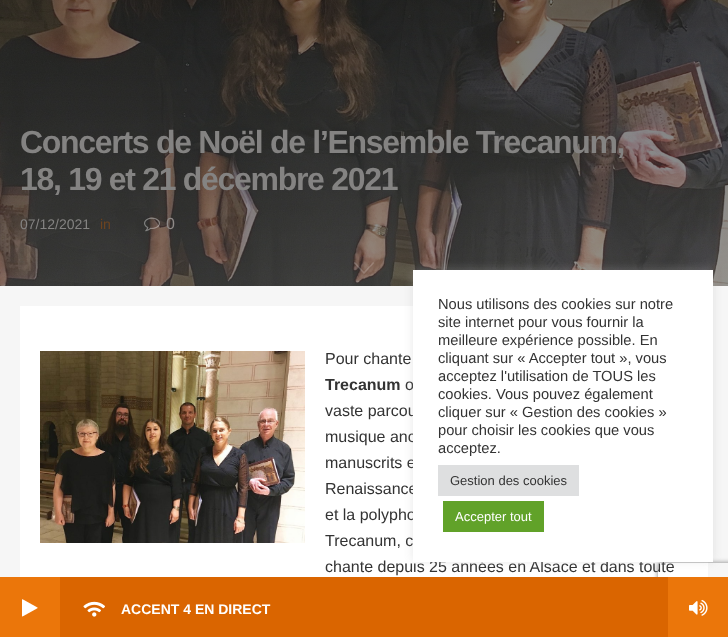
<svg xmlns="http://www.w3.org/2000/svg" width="728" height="637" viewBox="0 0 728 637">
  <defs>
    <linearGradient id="g1" gradientUnits="userSpaceOnUse" x1="364" y1="-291" x2="364" y2="346"><stop offset="0" stop-color="rgb(0,0,0)"/><stop offset="1" stop-color="rgb(84,84,84)"/></linearGradient>
    <clipPath id="clip1"><path d="M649 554H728V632H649ZM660 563H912C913 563 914 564 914 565V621C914 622 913 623 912 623H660C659 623 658 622 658 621V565C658 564 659 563 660 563Z" clip-rule="evenodd"/></clipPath>
  </defs>
  <rect width="100%" height="100%" fill="rgb(246,246,246)"/>
  <rect x="0" y="0" width="728" height="286" fill="url(#g1)"/>
  <image x="0" y="0" width="728" height="286" href="pic1.png"/>
  <g font-family="Liberation Sans" font-size="32" font-weight="bold" letter-spacing="-1.3" fill="rgb(132,131,130)">
    <text>
      <tspan x="20" y="153">Concerts de Noël de l’Ensemble Trecanum,</tspan>
      <tspan x="20" y="190">18, 19 et 21 décembre 2021</tspan>
    </text>
  </g>
  <text x="20" y="229" font-family="Liberation Sans" font-size="14" fill="rgb(132,131,130)">07/12/2021</text>
  <text x="100" y="229" font-family="Liberation Sans" font-size="14" fill="rgb(108,67,31)">in</text>
  <image x="144" y="217" width="16" height="15" href="pic2.png"/>
  <text x="166" y="229" font-family="Liberation Sans" font-size="16" fill="rgb(143,138,136)">0</text>
  <image x="354" y="262" width="20" height="12" href="pic3.png"/>
  <rect x="20" y="306" width="688" height="271" fill="rgb(255,255,255)"/>
  <image x="40" y="351" width="265" height="192" href="pic4.png"/>
  <text x="325" y="364" font-family="Liberation Sans" font-size="16" fill="rgb(51,51,51)">Pour chante</text>
  <text x="325" y="390" font-family="Liberation Sans" font-size="16" font-weight="bold" fill="rgb(51,51,51)">Trecanum</text>
  <g font-family="Liberation Sans" font-size="16" fill="rgb(51,51,51)">
    <text x="405" y="390">o</text>
    <text>
      <tspan x="325" y="416">vaste parcou</tspan>
      <tspan x="325" y="442">musique anc</tspan>
      <tspan x="325" y="468">manuscrits e</tspan>
      <tspan x="325" y="494">Renaissance</tspan>
      <tspan x="325" y="520">et la polypho</tspan>
      <tspan x="325" y="546">Trecanum, c</tspan>
      <tspan x="325" y="572">chante depuis 25 années en Alsace et dans toute</tspan>
    </text>
  </g>
  <rect x="413" y="269" width="300" height="292" fill="rgba(172,171,171,0.3)" filter="blur(5px)"/>
  <g clip-path="url(#clip1)">
    <rect x="658" y="563" width="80" height="60" rx="2" fill="rgb(128,128,128)" filter="blur(2.5px)"/>
  </g>
  <rect x="413" y="270" width="300" height="292" fill="rgb(255,255,255)"/>
  <g font-family="Liberation Sans" font-size="14.7" fill="rgb(51,51,51)">
    <text>
      <tspan x="438" y="309">Nous utilisons des cookies sur notre</tspan>
      <tspan x="438" y="327">site internet pour vous fournir la</tspan>
      <tspan x="438" y="345">meilleure expérience possible. En</tspan>
      <tspan x="438" y="363">cliquant sur « Accepter tout », vous</tspan>
      <tspan x="438" y="381">acceptez l'utilisation de TOUS les</tspan>
      <tspan x="438" y="399">cookies. Vous pouvez également</tspan>
      <tspan x="438" y="417">cliquer sur « Gestion des cookies »</tspan>
      <tspan x="438" y="435">pour choisir les cookies que vous</tspan>
      <tspan x="438" y="453">acceptez.</tspan>
    </text>
  </g>
  <rect x="438" y="465" width="141" height="31" fill="rgb(222,223,224)"/>
  <text x="450" y="485" font-family="Liberation Sans" font-size="13" fill="rgb(51,51,51)">Gestion des cookies</text>
  <rect x="443" y="501" width="101" height="31" fill="rgb(97,162,41)"/>
  <text x="455" y="521" font-family="Liberation Sans" font-size="13" fill="rgb(255,255,255)">Accepter tout</text>
  <rect x="0" y="577" width="728" height="60" fill="rgb(235,118,10)"/>
  <image x="22" y="599" width="16" height="18" href="pic5.png"/>
  <rect x="60" y="577" width="608" height="60" fill="rgb(218,101,0)"/>
  <image x="83" y="601" width="22" height="16" href="pic6.png"/>
  <text x="121" y="614" font-family="Liberation Sans" font-size="14" font-weight="bold" fill="rgb(255,255,255)">ACCENT 4 EN DIRECT</text>
  <image x="689" y="599" width="19" height="17" href="pic7.png"/>
</svg>
